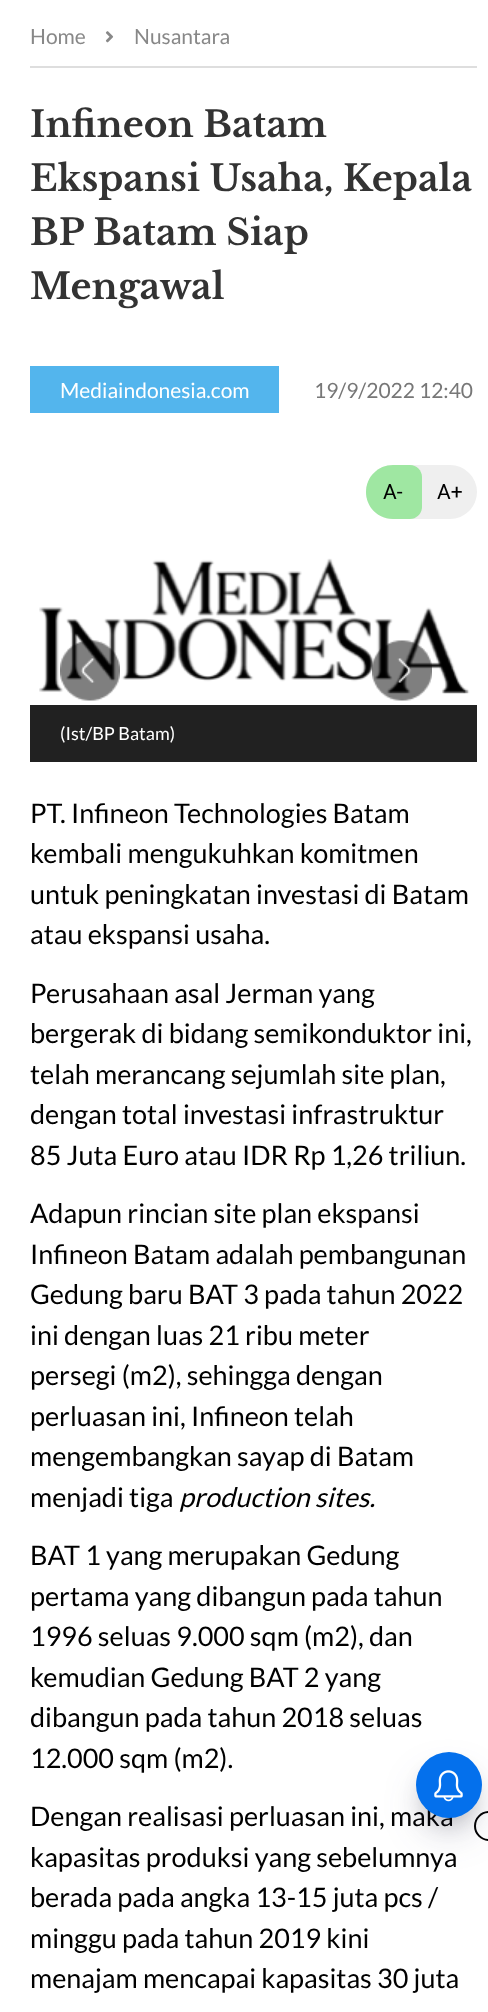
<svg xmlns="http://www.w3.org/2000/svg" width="488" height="2012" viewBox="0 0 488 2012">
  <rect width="100%" height="100%" fill="rgb(255,255,255)"/>
  <rect x="30" y="66" width="447" height="2" fill="rgb(222,222,222)"/>
  <text x="30" y="44" font-family="Lato" font-size="21" fill="rgb(136,136,136)">Home</text>
  <image x="105" y="31" width="9" height="12" href="pic1.png"/>
  <text x="134" y="44" font-family="Lato" font-size="21" fill="rgb(136,136,136)">Nusantara</text>
  <g font-family="Libre Baskerville" font-size="36" font-weight="bold" fill="rgb(51,51,51)">
    <text>
      <tspan x="30" y="137">Infineon Batam</tspan>
      <tspan x="30" y="191">Ekspansi Usaha, Kepala</tspan>
      <tspan x="30" y="245">BP Batam Siap</tspan>
      <tspan x="30" y="299">Mengawal</tspan>
    </text>
  </g>
  <rect x="30" y="366" width="249" height="47" fill="rgb(83,181,237)"/>
  <text x="60" y="398" font-family="Lato" font-size="21" fill="rgb(255,255,255)">Mediaindonesia.com</text>
  <text x="314" y="398" font-family="Lato" font-size="21" fill="rgb(119,119,119)">19/9/2022 12:40</text>
  <rect x="366" y="465" width="111" height="54" rx="27" fill="rgb(239,239,239)"/>
  <path d="M393 465H410C416.5 465 422 470.5 422 477V507C422 513.5 416.5 519 410 519H393C378 519 366 507 366 492C366 477 378 465 393 465Z" fill="rgb(159,231,162)"/>
  <g font-family="Roboto" font-size="21" fill="rgb(0,0,0)">
    <text x="383" y="499">A-</text>
    <text x="437" y="499">A+</text>
  </g>
  <image x="39" y="558" width="431" height="136" href="pic4.png"/>
  <image x="60" y="640" width="60" height="61" href="pic2.png"/>
  <image x="372" y="640" width="60" height="61" href="pic3.png"/>
  <rect x="30" y="705" width="447" height="57" fill="rgb(33,33,33)"/>
  <text x="60" y="740" font-family="Lato" font-size="18" fill="rgb(255,255,255)">(Ist/BP Batam)</text>
  <g font-family="Lato" font-size="27" fill="rgb(0,0,0)">
    <text>
      <tspan x="30" y="823">PT. Infineon Technologies Batam</tspan>
      <tspan x="30" y="863">kembali mengukuhkan komitmen</tspan>
      <tspan x="30" y="904">untuk peningkatan investasi di Batam</tspan>
      <tspan x="30" y="944">atau ekspansi usaha.</tspan>
    </text>
    <text>
      <tspan x="30" y="1003">Perusahaan asal Jerman yang</tspan>
      <tspan x="30" y="1043">bergerak di bidang semikonduktor ini,</tspan>
      <tspan x="30" y="1084">telah merancang sejumlah site plan,</tspan>
      <tspan x="30" y="1124">dengan total investasi infrastruktur</tspan>
      <tspan x="30" y="1165">85 Juta Euro atau IDR Rp 1,26 triliun.</tspan>
    </text>
    <text>
      <tspan x="30" y="1223">Adapun rincian site plan ekspansi</tspan>
      <tspan x="30" y="1264">Infineon Batam adalah pembangunan</tspan>
      <tspan x="30" y="1304">Gedung baru BAT 3 pada tahun 2022</tspan>
      <tspan x="30" y="1345">ini dengan luas 21 ribu meter</tspan>
      <tspan x="30" y="1385">persegi (m2), sehingga dengan</tspan>
      <tspan x="30" y="1426">perluasan ini, Infineon telah</tspan>
      <tspan x="30" y="1466">mengembangkan sayap di Batam</tspan>
      <tspan x="30" y="1507">menjadi tiga</tspan>
    </text>
  </g>
  <text x="179" y="1507" font-family="Lato" font-size="27" font-style="italic" fill="rgb(0,0,0)">production sites.</text>
  <g font-family="Lato" font-size="27" fill="rgb(0,0,0)">
    <text>
      <tspan x="30" y="1565">BAT 1 yang merupakan Gedung</tspan>
      <tspan x="30" y="1606">pertama yang dibangun pada tahun</tspan>
      <tspan x="30" y="1646">1996 seluas 9.000 sqm (m2), dan</tspan>
      <tspan x="30" y="1687">kemudian Gedung BAT 2 yang</tspan>
      <tspan x="30" y="1727">dibangun pada tahun 2018 seluas</tspan>
      <tspan x="30" y="1768">12.000 sqm (m2).</tspan>
    </text>
    <text>
      <tspan x="30" y="1826">Dengan realisasi perluasan ini, maka</tspan>
      <tspan x="30" y="1867">kapasitas produksi yang sebelumnya</tspan>
      <tspan x="30" y="1907">berada pada angka 13-15 juta pcs /</tspan>
      <tspan x="30" y="1948">minggu pada tahun 2019 kini</tspan>
      <tspan x="30" y="1988">menajam mencapai kapasitas 30 juta</tspan>
    </text>
  </g>
  <circle cx="489" cy="1826" r="14" fill="none" stroke="rgb(0,0,0)" stroke-width="2"/>
  <rect x="428" y="1776" width="42" height="42" rx="21" fill="rgba(0,0,0,0.3)" filter="blur(12px)"/>
  <rect x="423" y="1779" width="51" height="51" rx="25.5" fill="rgba(50,50,93,0.25)" filter="blur(20px)"/>
  <circle cx="449" cy="1785" r="33" fill="rgb(4,112,236)"/>
  <image x="434" y="1770" width="29" height="32" href="pic5.png"/>
</svg>
